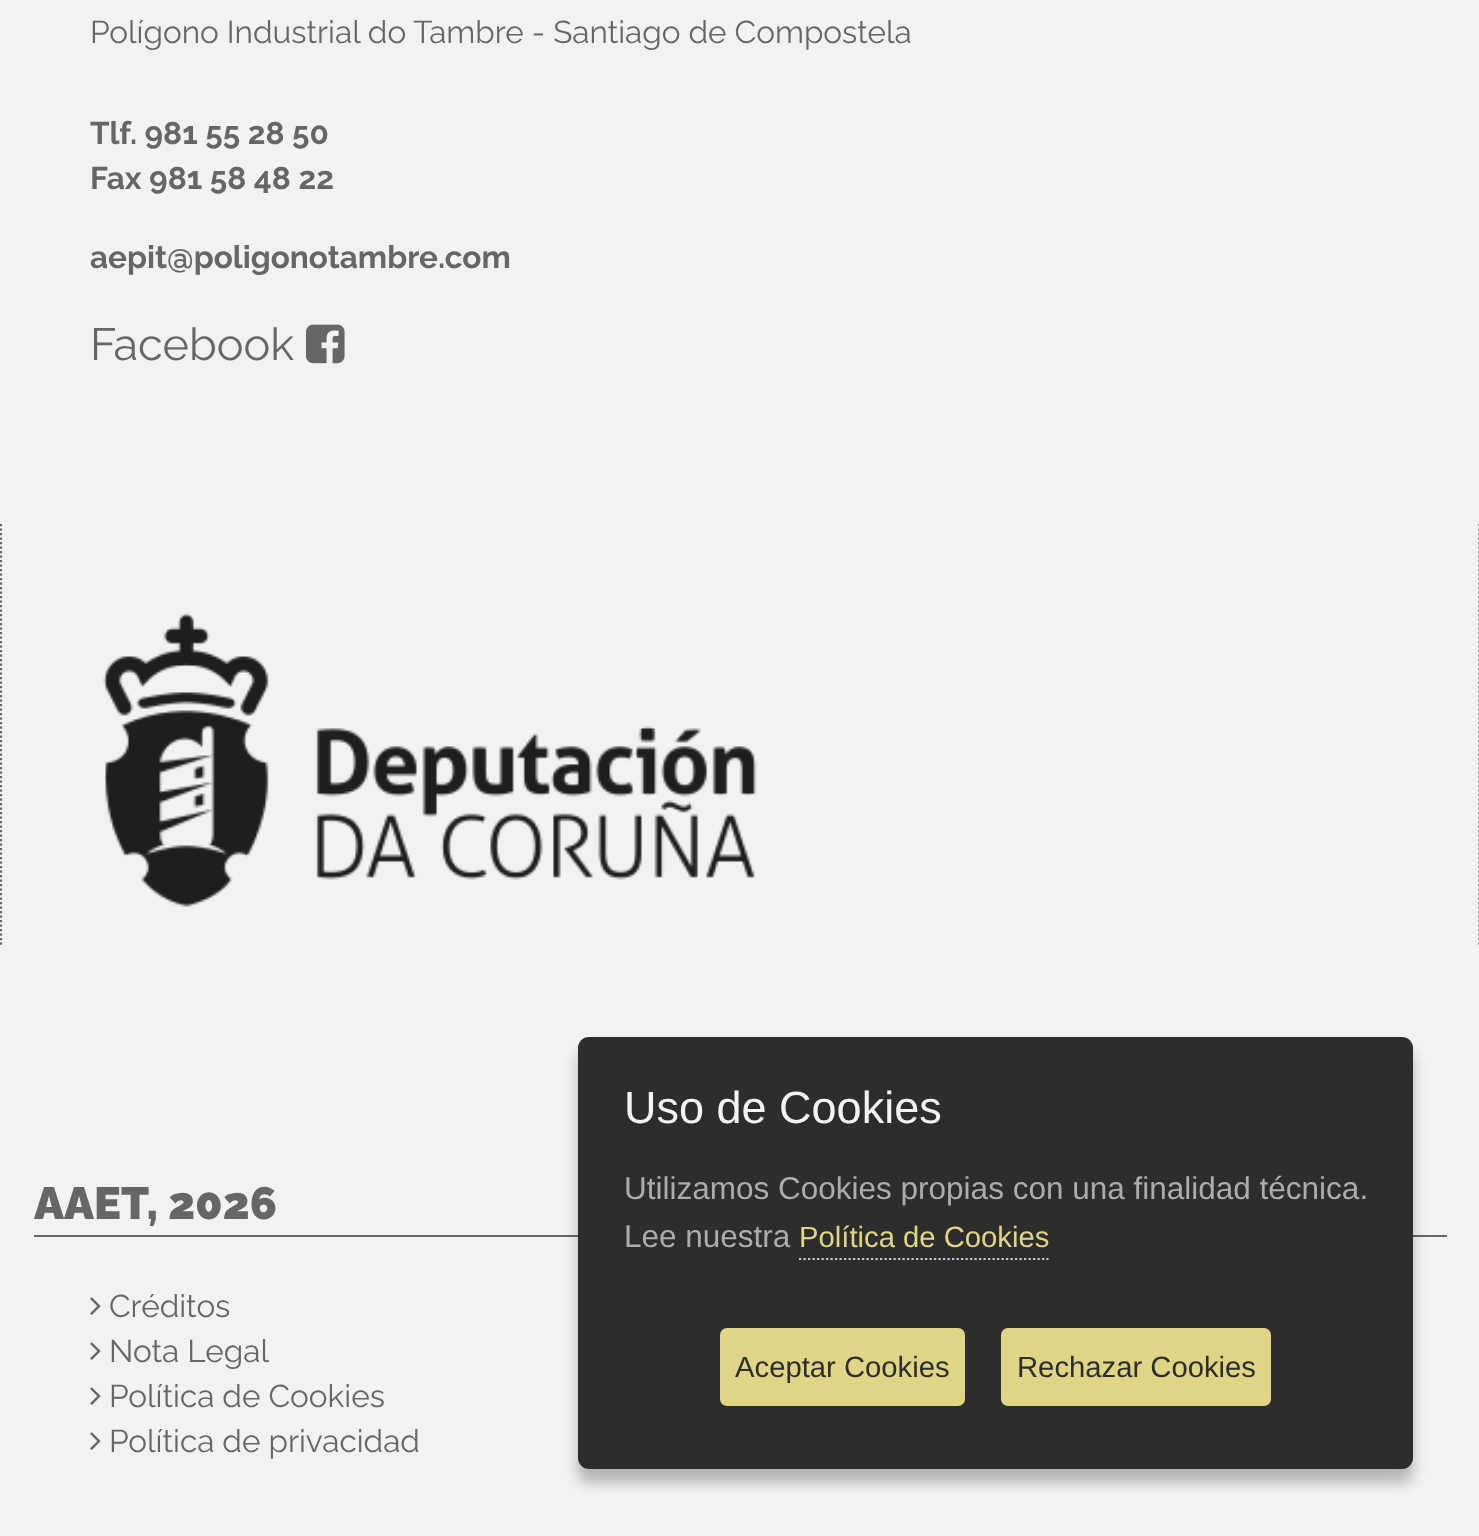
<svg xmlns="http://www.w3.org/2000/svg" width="1479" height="1536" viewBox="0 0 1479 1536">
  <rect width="100%" height="100%" fill="rgb(242,242,242)"/>
  <text x="90" y="43" font-family="Raleway" font-size="31.5" fill="rgb(102,102,102)">Polígono Industrial do Tambre - Santiago de Compostela</text>
  <g font-family="Raleway" font-size="31.5" font-weight="bold" fill="rgb(102,102,102)">
    <text>
      <tspan x="90" y="144">Tlf. 981 55 28 50</tspan>
      <tspan x="90" y="189">Fax 981 58 48 22</tspan>
    </text>
    <text x="90" y="268">aepit@poligonotambre.com</text>
  </g>
  <text x="90" y="360" font-family="Raleway" font-size="45" fill="rgb(102,102,102)">Facebook</text>
  <image x="306" y="324" width="39" height="40" href="pic1.png"/>
  <path d="M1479.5 524V947" fill="none" stroke="rgb(102,102,102)" stroke-width="2.2" stroke-dasharray="2.25 2.25"/>
  <path d="M1 524V947" fill="none" stroke="rgb(102,102,102)" stroke-width="2.2" stroke-dasharray="2.25 2.25"/>
  <image x="103" y="613" width="654" height="294" href="pic2.png"/>
  <rect x="34" y="1235" width="1413" height="2" fill="rgb(102,102,102)"/>
  <text x="34" y="1219" font-family="Raleway" font-size="45" font-weight="900" fill="rgb(102,102,102)">AAET, 2026</text>
  <image x="90" y="1297" width="11" height="18" href="pic3.png"/>
  <text x="109" y="1317" font-family="Raleway" font-size="31.5" fill="rgb(102,102,102)">Créditos</text>
  <image x="90" y="1342" width="11" height="18" href="pic3.png"/>
  <text x="109" y="1362" font-family="Raleway" font-size="31.5" fill="rgb(102,102,102)">Nota Legal</text>
  <image x="90" y="1387" width="11" height="18" href="pic3.png"/>
  <text x="109" y="1407" font-family="Raleway" font-size="31.5" fill="rgb(102,102,102)">Política de Cookies</text>
  <image x="90" y="1432" width="11" height="18" href="pic3.png"/>
  <text x="109" y="1452" font-family="Raleway" font-size="31.5" fill="rgb(102,102,102)">Política de privacidad</text>
  <rect x="578" y="1051" width="835" height="432" rx="11" fill="rgba(0,0,0,0.25)" filter="blur(7px)"/>
  <rect x="578" y="1037" width="835" height="432" rx="11" fill="rgb(45,45,45)"/>
  <text x="624" y="1123" font-family="Liberation Sans" font-size="45" fill="rgb(243,243,243)">Uso de Cookies</text>
  <g font-family="Liberation Sans" font-size="31.5" fill="rgb(172,172,172)">
    <text>
      <tspan x="624" y="1199">Utilizamos Cookies propias con una finalidad técnica.</tspan>
      <tspan x="624" y="1247">Lee nuestra</tspan>
    </text>
  </g>
  <text x="799" y="1247" font-family="Liberation Sans" font-size="29.25" fill="rgb(224,213,135)">Política de Cookies</text>
  <path d="M799 1259H1048.5" fill="none" stroke="rgb(203,203,203)" stroke-width="2.2" stroke-dasharray="2.25 2.25"/>
  <rect x="720" y="1328" width="245" height="78" rx="7" fill="rgb(224,213,135)"/>
  <text x="735" y="1377" font-family="Liberation Sans" font-size="29.25" fill="rgb(45,45,45)">Aceptar Cookies</text>
  <rect x="1001" y="1328" width="270" height="78" rx="7" fill="rgb(224,213,135)"/>
  <text x="1017" y="1377" font-family="Liberation Sans" font-size="29.25" fill="rgb(45,45,45)">Rechazar Cookies</text>
</svg>
